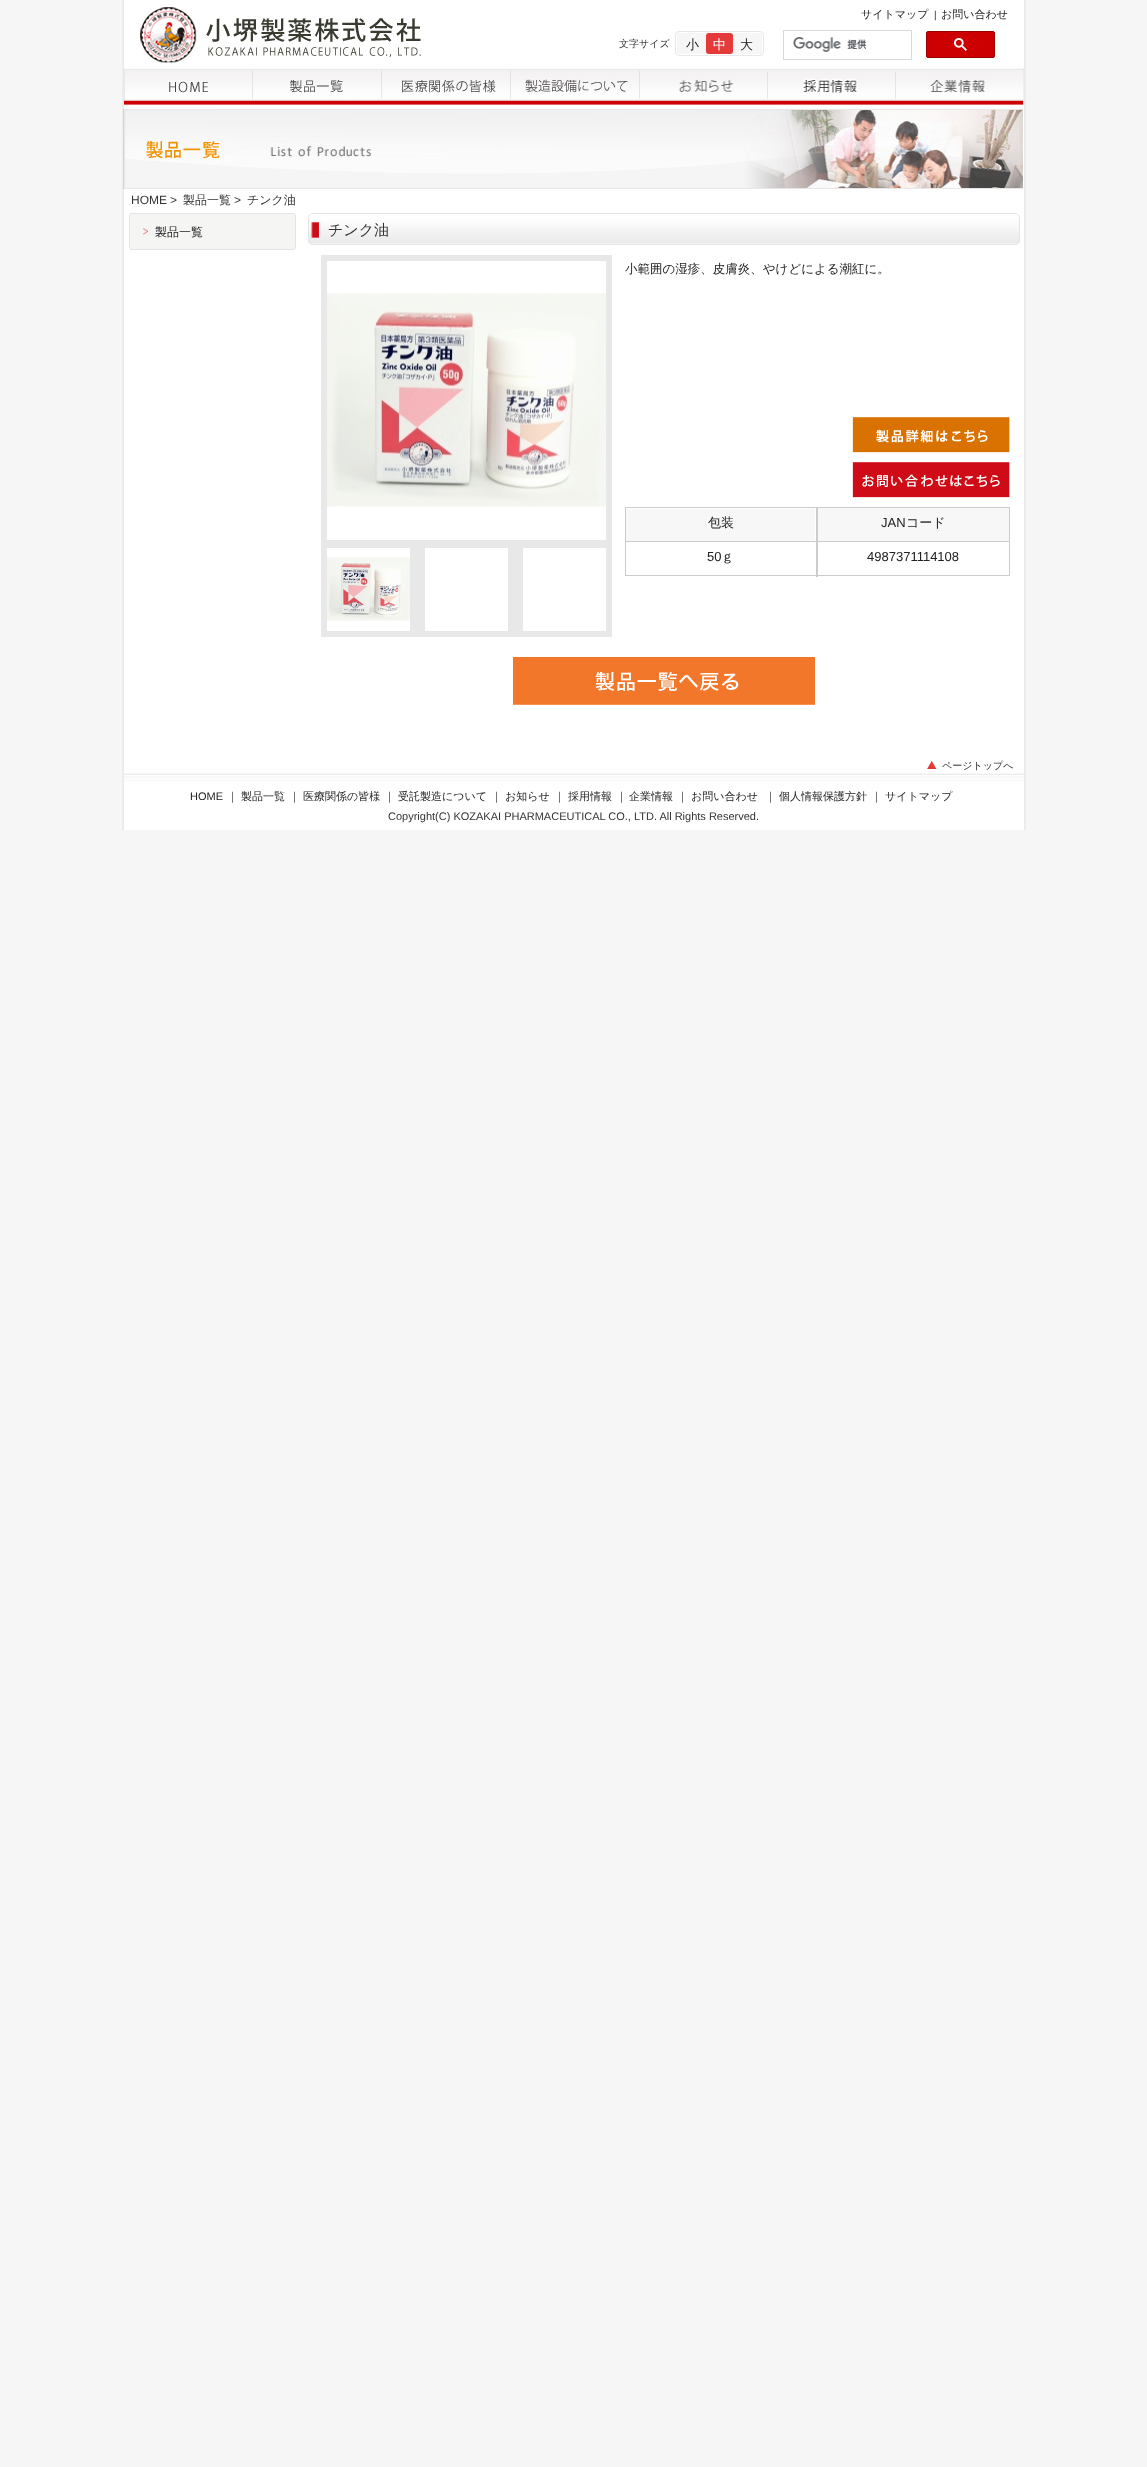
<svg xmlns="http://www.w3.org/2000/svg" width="1147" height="2467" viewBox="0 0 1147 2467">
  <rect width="100%" height="100%" fill="rgb(246,246,246)"/>
  <image x="122" y="0" width="904" height="830" href="pic1.png"/>
  <image x="140" y="7" width="281" height="56" href="pic2.png"/>
  <text x="861" y="18" font-family="WenQuanYi Zen Hei" font-size="11" font-weight="500" fill="rgb(34,34,34)">サイトマップ</text>
  <text x="934" y="18" font-family="Liberation Sans" font-size="10" fill="rgb(51,51,51)">|</text>
  <text x="941" y="18" font-family="WenQuanYi Zen Hei" font-size="11" font-weight="500" fill="rgb(34,34,34)">お問い合わせ</text>
  <text x="619" y="47" font-family="WenQuanYi Zen Hei" font-size="10" font-weight="500" fill="rgb(51,51,51)">文字サイズ</text>
  <rect x="675.5" y="31.5" width="88" height="24" rx="3.5" fill="none" stroke="rgb(232,232,232)"/>
  <rect x="677" y="33" width="85" height="21" fill="rgb(246,246,246)"/>
  <text x="686" y="49" font-family="WenQuanYi Zen Hei" font-size="13" font-weight="500" fill="rgb(34,34,34)">小</text>
  <rect x="706" y="33" width="27" height="21" rx="3" fill="rgb(228,59,58)"/>
  <text x="713" y="49" font-family="WenQuanYi Zen Hei" font-size="13" font-weight="500" fill="rgb(255,255,255)">中</text>
  <text x="740" y="49" font-family="WenQuanYi Zen Hei" font-size="13" font-weight="500" fill="rgb(34,34,34)">大</text>
  <rect x="783.5" y="30.5" width="128" height="29" fill="none" stroke="rgb(217,217,217)"/>
  <image x="793" y="37" width="74" height="15" href="pic3.png"/>
  <rect x="926.5" y="31.5" width="68" height="26" rx="1.5" fill="rgb(204,0,0)" stroke="rgb(153,0,0)"/>
  <image x="954" y="38" width="13" height="13" href="pic4.png"/>
  <image x="124" y="68" width="129" height="37" href="pic5.png"/>
  <image x="253" y="68" width="129" height="37" href="pic6.png"/>
  <image x="382" y="68" width="129" height="37" href="pic7.png"/>
  <image x="511" y="68" width="129" height="37" href="pic8.png"/>
  <image x="640" y="68" width="128" height="37" href="pic9.png"/>
  <image x="768" y="68" width="128" height="37" href="pic10.png"/>
  <image x="896" y="68" width="128" height="37" href="pic11.png"/>
  <image x="123" y="109" width="900" height="80" href="pic12.png"/>
  <g font-family="Liberation Sans" font-size="12" fill="rgb(51,51,51)">
    <text x="131" y="204">HOME</text>
    <text x="170" y="204">&gt;</text>
  </g>
  <text x="183" y="204" font-family="WenQuanYi Zen Hei" font-size="12" font-weight="500" fill="rgb(51,51,51)">製品一覧</text>
  <text x="234" y="204" font-family="Liberation Sans" font-size="12" fill="rgb(51,51,51)">&gt;</text>
  <text x="247" y="204" font-family="WenQuanYi Zen Hei" font-size="12" font-weight="500" fill="rgb(51,51,51)">チンク油</text>
  <rect x="129.5" y="213.5" width="166" height="36" rx="2.5" fill="rgb(245,245,244)" stroke="rgb(228,228,228)"/>
  <image x="143" y="228" width="5" height="7" href="pic13.png"/>
  <text x="155" y="236" font-family="WenQuanYi Zen Hei" font-size="12" font-weight="500" fill="rgb(34,34,34)">製品一覧</text>
  <image x="308" y="213" width="712" height="31" href="pic14.png"/>
  <rect x="308.5" y="213.5" width="711" height="31" rx="4.5" fill="none" stroke="rgb(228,228,228)"/>
  <image x="311" y="222" width="8" height="16" href="pic15.png"/>
  <text x="328" y="235" font-family="WenQuanYi Zen Hei" font-size="15" font-weight="500" fill="rgb(51,51,51)">チンク油</text>
  <rect x="321" y="255" width="291" height="382" fill="rgb(232,232,232)"/>
  <rect x="327" y="261" width="279" height="279" fill="rgb(255,255,255)"/>
  <image x="327" y="293" width="279" height="214" href="pic16.png"/>
  <rect x="327" y="548" width="83" height="83" fill="rgb(255,255,255)"/>
  <image x="327" y="557" width="83" height="64" href="pic17.png"/>
  <rect x="425" y="548" width="83" height="83" fill="rgb(255,255,255)"/>
  <rect x="523" y="548" width="83" height="83" fill="rgb(255,255,255)"/>
  <text x="625" y="273" font-family="WenQuanYi Zen Hei" font-size="12.5" font-weight="500" fill="rgb(34,34,34)">小範囲の湿疹、皮膚炎、やけどによる潮紅に。</text>
  <image x="852" y="417" width="158" height="36" href="pic18.png"/>
  <image x="852" y="462" width="158" height="36" href="pic19.png"/>
  <rect x="626" y="509" width="189" height="32" fill="rgb(247,247,247)"/>
  <rect x="625" y="507" width="385" height="1" fill="rgb(204,204,204)"/>
  <rect x="625" y="541" width="385" height="1" fill="rgb(204,204,204)"/>
  <rect x="1009" y="541" width="1" height="35" fill="rgb(204,204,204)"/>
  <rect x="625" y="575" width="385" height="1" fill="rgb(204,204,204)"/>
  <rect x="625" y="541" width="1" height="35" fill="rgb(204,204,204)"/>
  <rect x="625" y="507" width="1" height="35" fill="rgb(204,204,204)"/>
  <text x="708" y="527" font-family="WenQuanYi Zen Hei" font-size="13" font-weight="500" fill="rgb(34,34,34)">包装</text>
  <rect x="818" y="508" width="191" height="33" fill="rgb(247,247,247)"/>
  <rect x="1009" y="507" width="1" height="35" fill="rgb(204,204,204)"/>
  <text x="881" y="527" font-family="Liberation Sans" font-size="13" fill="rgb(34,34,34)">JAN</text>
  <text x="906" y="527" font-family="WenQuanYi Zen Hei" font-size="13" font-weight="500" fill="rgb(34,34,34)">コード</text>
  <rect x="816" y="507" width="2" height="70" fill="rgb(204,204,204)"/>
  <text x="707" y="561" font-family="Liberation Sans" font-size="13" fill="rgb(34,34,34)">50</text>
  <text x="721" y="561" font-family="WenQuanYi Zen Hei" font-size="13" font-weight="500" fill="rgb(34,34,34)">ｇ</text>
  <text x="867" y="561" font-family="Liberation Sans" font-size="13" fill="rgb(34,34,34)">4987371114108</text>
  <image x="513" y="657" width="302" height="48" href="pic20.png"/>
  <image x="927" y="760" width="10" height="9" href="pic21.png"/>
  <text x="942" y="769" font-family="WenQuanYi Zen Hei" font-size="10" font-weight="500" fill="rgb(51,51,51)">ページトップへ</text>
  <image x="124" y="773" width="900" height="8" href="pic22.png"/>
  <text x="190" y="800" font-family="Liberation Sans" font-size="11" fill="rgb(34,34,34)">HOME</text>
  <text x="227" y="800" font-family="WenQuanYi Zen Hei" font-size="11" font-weight="500" fill="rgb(51,51,51)">｜</text>
  <text x="241" y="800" font-family="WenQuanYi Zen Hei" font-size="11" font-weight="500" fill="rgb(34,34,34)">製品一覧</text>
  <text x="289" y="800" font-family="WenQuanYi Zen Hei" font-size="11" font-weight="500" fill="rgb(51,51,51)">｜</text>
  <text x="303" y="800" font-family="WenQuanYi Zen Hei" font-size="11" font-weight="500" fill="rgb(34,34,34)">医療関係の皆様</text>
  <text x="384" y="800" font-family="WenQuanYi Zen Hei" font-size="11" font-weight="500" fill="rgb(51,51,51)">｜</text>
  <text x="398" y="800" font-family="WenQuanYi Zen Hei" font-size="11" font-weight="500" fill="rgb(34,34,34)">受託製造について</text>
  <text x="491" y="800" font-family="WenQuanYi Zen Hei" font-size="11" font-weight="500" fill="rgb(51,51,51)">｜</text>
  <text x="505" y="800" font-family="WenQuanYi Zen Hei" font-size="11" font-weight="500" fill="rgb(34,34,34)">お知らせ</text>
  <text x="554" y="800" font-family="WenQuanYi Zen Hei" font-size="11" font-weight="500" fill="rgb(51,51,51)">｜</text>
  <text x="568" y="800" font-family="WenQuanYi Zen Hei" font-size="11" font-weight="500" fill="rgb(34,34,34)">採用情報</text>
  <text x="616" y="800" font-family="WenQuanYi Zen Hei" font-size="11" font-weight="500" fill="rgb(51,51,51)">｜</text>
  <text x="629" y="800" font-family="WenQuanYi Zen Hei" font-size="11" font-weight="500" fill="rgb(34,34,34)">企業情報</text>
  <text x="677" y="800" font-family="WenQuanYi Zen Hei" font-size="11" font-weight="500" fill="rgb(51,51,51)">｜</text>
  <text x="691" y="800" font-family="WenQuanYi Zen Hei" font-size="11" font-weight="500" fill="rgb(34,34,34)">お問い合わせ</text>
  <text x="765" y="800" font-family="WenQuanYi Zen Hei" font-size="11" font-weight="500" fill="rgb(51,51,51)">｜</text>
  <text x="779" y="800" font-family="WenQuanYi Zen Hei" font-size="11" font-weight="500" fill="rgb(34,34,34)">個人情報保護方針</text>
  <text x="871" y="800" font-family="WenQuanYi Zen Hei" font-size="11" font-weight="500" fill="rgb(51,51,51)">｜</text>
  <text x="885" y="800" font-family="WenQuanYi Zen Hei" font-size="11" font-weight="500" fill="rgb(34,34,34)">サイトマップ</text>
  <text x="388" y="820" font-family="Liberation Sans" font-size="11" fill="rgb(51,51,51)">Copyright(C) KOZAKAI PHARMACEUTICAL CO., LTD. All Rights Reserved.</text>
</svg>
